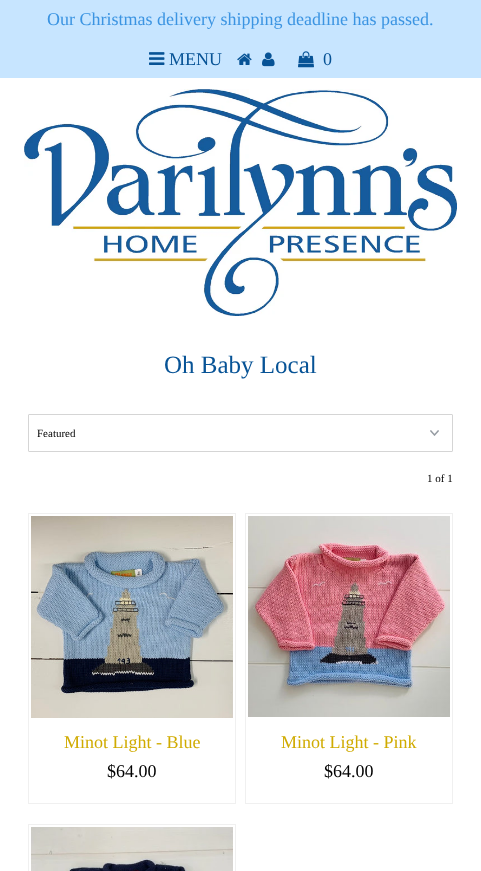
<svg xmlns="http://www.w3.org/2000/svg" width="481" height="871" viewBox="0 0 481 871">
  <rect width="100%" height="100%" fill="rgb(255,255,255)"/>
  <rect x="0" y="0" width="481" height="78" fill="rgb(199,229,255)"/>
  <text x="47" y="25" font-family="Liberation Serif" font-size="18" fill="rgb(59,148,226)">Our Christmas delivery shipping deadline has passed.</text>
  <image x="149" y="52" width="16" height="13" href="pic1.png"/>
  <text x="169" y="65" font-family="Liberation Serif" font-size="18" fill="rgb(7,83,150)">MENU</text>
  <image x="237" y="53" width="15" height="12" href="pic2.png"/>
  <image x="262" y="52" width="13" height="15" href="pic3.png"/>
  <image x="298" y="51" width="16" height="17" href="pic4.png"/>
  <text x="323" y="65" font-family="Liberation Serif" font-size="18" fill="rgb(7,83,150)">0</text>
  <image x="24" y="89" width="433" height="227" href="pic5.png"/>
  <text x="164" y="373" font-family="Liberation Serif" font-size="25" fill="rgb(7,83,150)">Oh Baby Local</text>
  <image x="430" y="430" width="9" height="6" href="pic6.png"/>
  <rect x="28.5" y="414.5" width="424" height="37" rx="0.5" fill="none" stroke="rgb(213,213,213)"/>
  <g font-family="Liberation Serif" font-size="11" fill="rgb(0,0,0)">
    <text x="37" y="437">Featured</text>
    <text x="427" y="482">1 of 1</text>
  </g>
  <rect x="28.5" y="513.5" width="207" height="290" fill="none" stroke="rgb(240,240,240)"/>
  <image x="31" y="516" width="202" height="202" href="pic7.png"/>
  <text x="64" y="748" font-family="Liberation Serif" font-size="18" fill="rgb(208,171,0)">Minot Light - Blue</text>
  <text x="107" y="777" font-family="Liberation Serif" font-size="18" fill="rgb(0,0,0)">$64.00</text>
  <rect x="245.5" y="513.5" width="207" height="290" fill="none" stroke="rgb(240,240,240)"/>
  <image x="248" y="516" width="202" height="201" href="pic8.png"/>
  <text x="281" y="748" font-family="Liberation Serif" font-size="18" fill="rgb(208,171,0)">Minot Light - Pink</text>
  <text x="324" y="777" font-family="Liberation Serif" font-size="18" fill="rgb(0,0,0)">$64.00</text>
  <rect x="28.5" y="824.5" width="207" height="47" fill="none" stroke="rgb(240,240,240)"/>
  <image x="31" y="827" width="202" height="44" href="pic9.png"/>
</svg>
